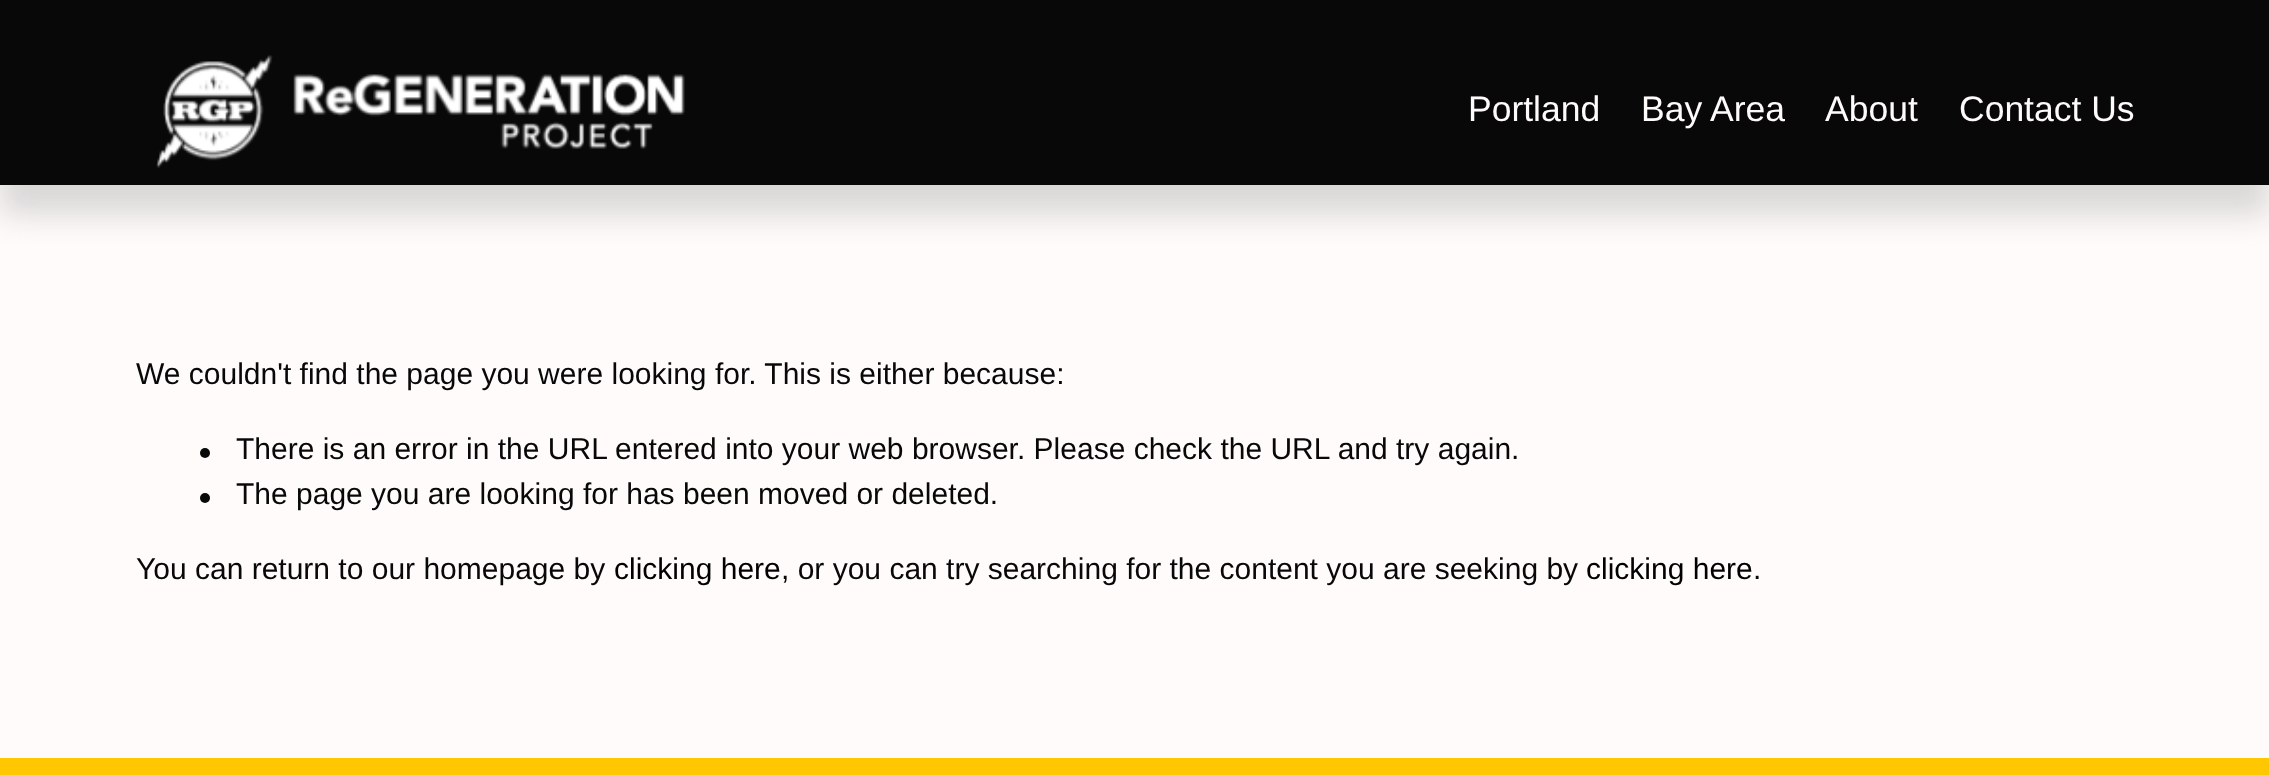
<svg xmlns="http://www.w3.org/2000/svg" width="2269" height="775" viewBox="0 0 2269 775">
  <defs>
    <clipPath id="clip1"><rect x="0" y="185" width="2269" height="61"/></clipPath>
  </defs>
  <rect width="100%" height="100%" fill="rgb(255,251,251)"/>
  <rect x="0" y="0" width="2269" height="185" fill="rgb(8,8,8)"/>
  <g clip-path="url(#clip1)">
    <rect x="0" y="30" width="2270" height="185" fill="rgb(218,215,215)" filter="blur(15px)"/>
  </g>
  <image x="156" y="55" width="529" height="113" href="pic1.png"/>
  <g font-family="Liberation Sans" font-size="35.5" fill="rgb(255,251,251)">
    <text x="1468" y="121">Portland</text>
    <text x="1641" y="121">Bay Area</text>
    <text x="1825" y="121">About</text>
    <text x="1959" y="121">Contact Us</text>
  </g>
  <text x="136" y="384" font-family="Liberation Sans" font-size="30" fill="rgb(8,8,8)">We couldn't find the page you were looking for. This is either because:</text>
  <circle cx="205" cy="453" r="5" fill="rgb(8,8,8)"/>
  <text x="236" y="459" font-family="Liberation Sans" font-size="30" fill="rgb(8,8,8)">There is an error in the URL entered into your web browser. Please check the URL and try again.</text>
  <circle cx="205" cy="498" r="5" fill="rgb(8,8,8)"/>
  <g font-family="Liberation Sans" font-size="30" fill="rgb(8,8,8)">
    <text x="236" y="504">The page you are looking for has been moved or deleted.</text>
    <text x="136" y="579">You can return to our homepage by</text>
  </g>
  <text x="614" y="579" font-family="Liberation Sans" font-size="30" fill="rgb(0,0,0)">clicking here</text>
  <text x="781" y="579" font-family="Liberation Sans" font-size="30" fill="rgb(8,8,8)">, or you can try searching for the content you are seeking by</text>
  <text x="1586" y="579" font-family="Liberation Sans" font-size="30" fill="rgb(0,0,0)">clicking here</text>
  <text x="1753" y="579" font-family="Liberation Sans" font-size="30" fill="rgb(8,8,8)">.</text>
  <rect x="0" y="758" width="2269" height="17" fill="rgb(255,199,0)"/>
</svg>
